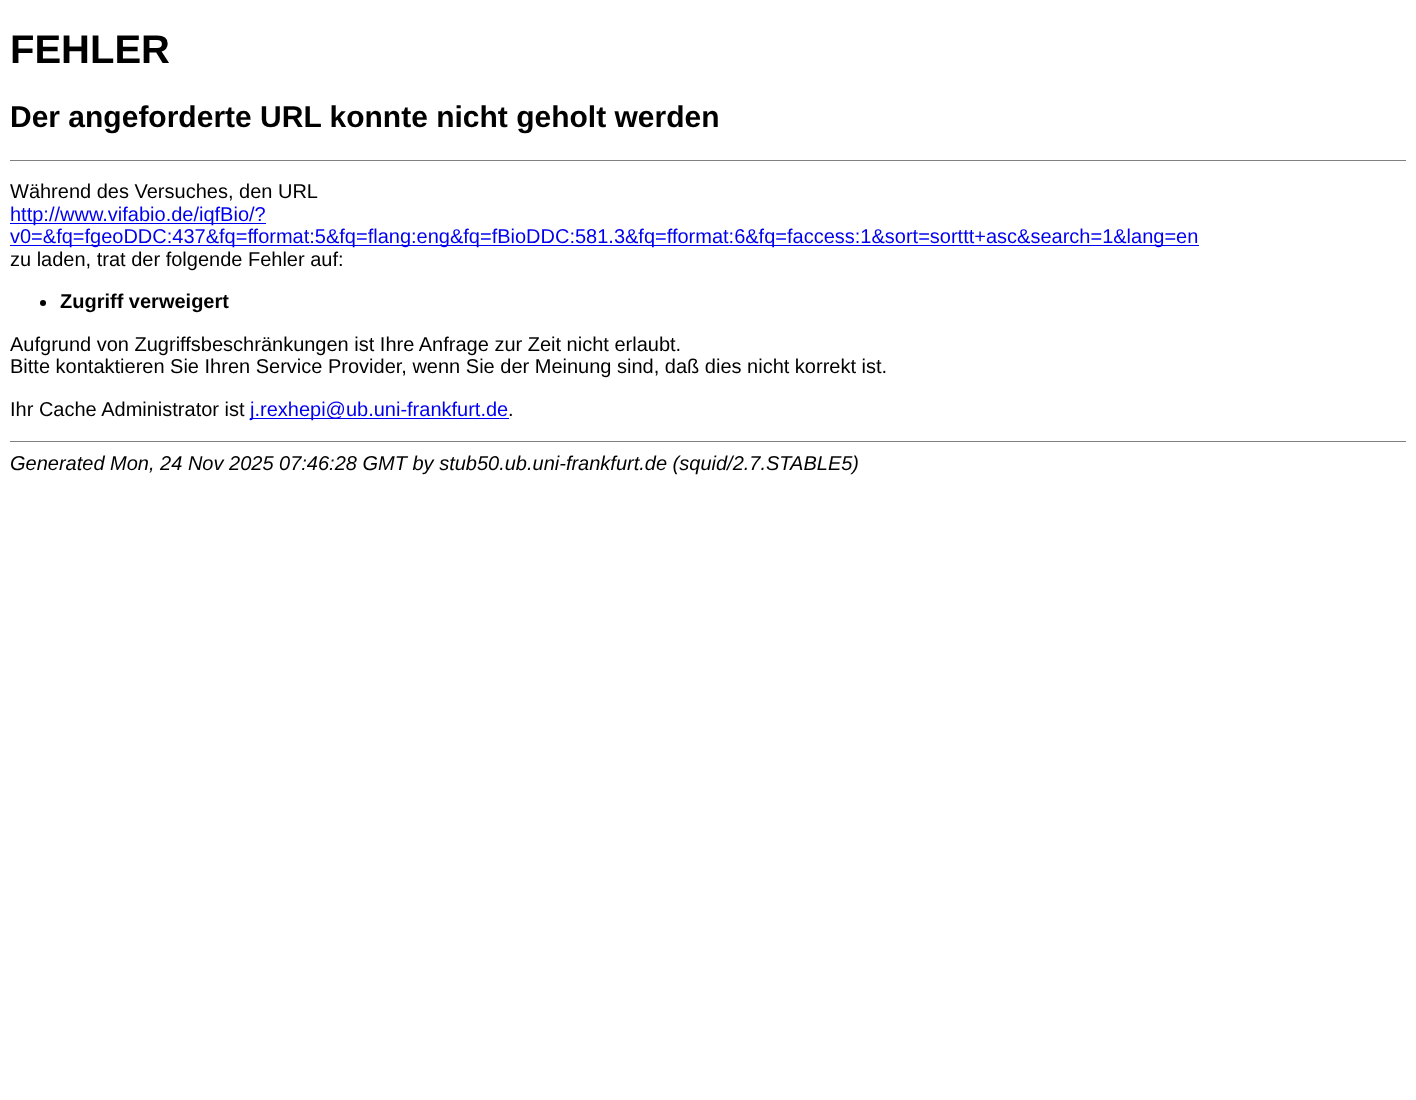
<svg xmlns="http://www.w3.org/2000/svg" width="1416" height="1100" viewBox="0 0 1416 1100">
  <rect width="100%" height="100%" fill="rgb(255,255,255)"/>
  <text x="10" y="63" font-family="Liberation Sans" font-size="40" font-weight="bold" fill="rgb(0,0,0)">FEHLER</text>
  <text x="10" y="127" font-family="Liberation Sans" font-size="30" font-weight="bold" fill="rgb(0,0,0)">Der angeforderte URL konnte nicht geholt werden</text>
  <rect x="10" y="160" width="1396" height="1" fill="rgb(128,128,128)"/>
  <text x="10" y="198" font-family="Liberation Sans" font-size="20" fill="rgb(0,0,0)">Während des Versuches, den URL</text>
  <rect x="10" y="223" width="256" height="1" fill="rgb(0,0,238)"/>
  <text x="10" y="221" font-family="Liberation Sans" font-size="20" fill="rgb(0,0,238)">http://www.vifabio.de/iqfBio/?</text>
  <rect x="10" y="245" width="1189" height="1" fill="rgb(0,0,238)"/>
  <text x="10" y="243" font-family="Liberation Sans" font-size="20" fill="rgb(0,0,238)">v0=&amp;fq=fgeoDDC:437&amp;fq=fformat:5&amp;fq=flang:eng&amp;fq=fBioDDC:581.3&amp;fq=fformat:6&amp;fq=faccess:1&amp;sort=sorttt+asc&amp;search=1&amp;lang=en</text>
  <text x="10" y="266" font-family="Liberation Sans" font-size="20" fill="rgb(0,0,0)">zu laden, trat der folgende Fehler auf:</text>
  <circle cx="43" cy="303" r="3" fill="rgb(0,0,0)"/>
  <text x="60" y="308" font-family="Liberation Sans" font-size="20" font-weight="bold" fill="rgb(0,0,0)">Zugriff verweigert</text>
  <g font-family="Liberation Sans" font-size="20" fill="rgb(0,0,0)">
    <text>
      <tspan x="10" y="351">Aufgrund von Zugriffsbeschränkungen ist Ihre Anfrage zur Zeit nicht erlaubt.</tspan>
      <tspan x="10" y="373">Bitte kontaktieren Sie Ihren Service Provider, wenn Sie der Meinung sind, daß dies nicht korrekt ist.</tspan>
    </text>
    <text x="10" y="416">Ihr Cache Administrator ist</text>
  </g>
  <rect x="250" y="418" width="259" height="1" fill="rgb(0,0,238)"/>
  <text x="250" y="416" font-family="Liberation Sans" font-size="20" fill="rgb(0,0,238)">j.rexhepi@ub.uni-frankfurt.de</text>
  <text x="508" y="416" font-family="Liberation Sans" font-size="20" fill="rgb(0,0,0)">.</text>
  <rect x="10" y="441" width="1396" height="1" fill="rgb(128,128,128)"/>
  <text x="10" y="470" font-family="Liberation Sans" font-size="20" font-style="italic" fill="rgb(0,0,0)">Generated Mon, 24 Nov 2025 07:46:28 GMT by stub50.ub.uni-frankfurt.de (squid/2.7.STABLE5)</text>
</svg>
